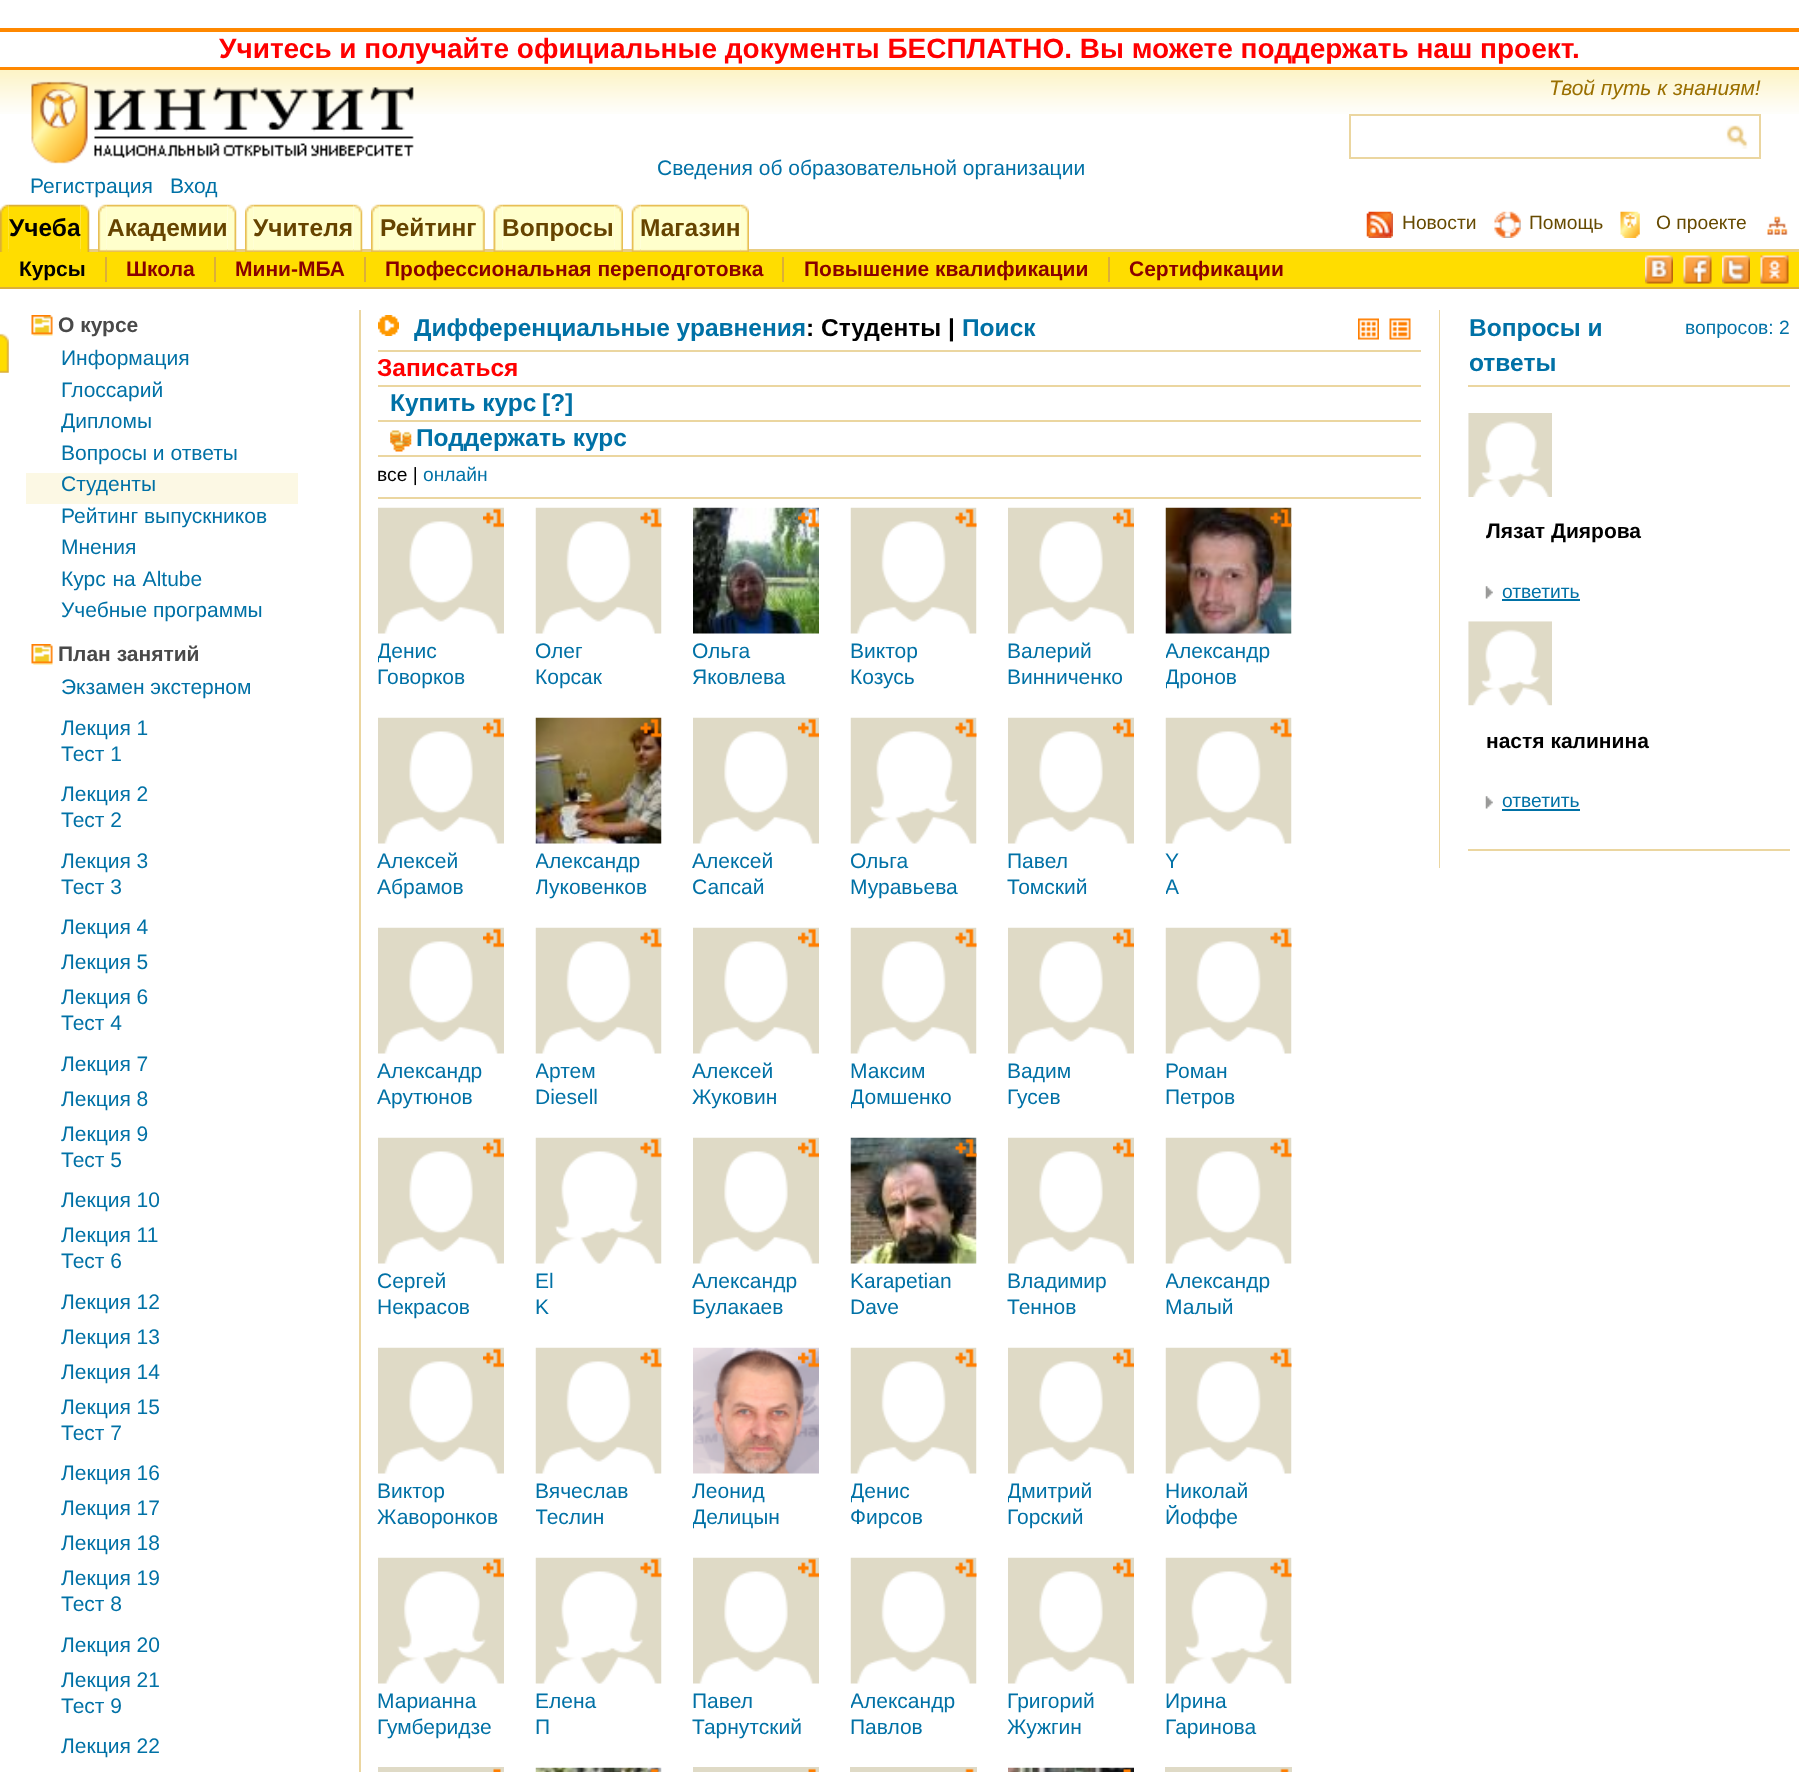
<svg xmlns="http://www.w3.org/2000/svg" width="1799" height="1772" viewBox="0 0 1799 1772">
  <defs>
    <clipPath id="clip1"><rect x="378" y="639" width="140" height="52"/></clipPath>
    <clipPath id="clip2"><rect x="536" y="639" width="140" height="52"/></clipPath>
    <clipPath id="clip3"><rect x="1166" y="639" width="140" height="52"/></clipPath>
    <clipPath id="clip4"><rect x="536" y="849" width="140" height="52"/></clipPath>
    <clipPath id="clip5"><rect x="851" y="849" width="140" height="52"/></clipPath>
    <clipPath id="clip6"><rect x="1166" y="849" width="140" height="52"/></clipPath>
    <clipPath id="clip7"><rect x="536" y="1059" width="140" height="52"/></clipPath>
    <clipPath id="clip8"><rect x="851" y="1059" width="140" height="52"/></clipPath>
    <clipPath id="clip9"><rect x="1166" y="1269" width="140" height="52"/></clipPath>
    <clipPath id="clip10"><rect x="536" y="1479" width="140" height="52"/></clipPath>
    <clipPath id="clip11"><rect x="693" y="1479" width="140" height="52"/></clipPath>
    <clipPath id="clip12"><rect x="851" y="1479" width="140" height="52"/></clipPath>
    <clipPath id="clip13"><rect x="1008" y="1479" width="140" height="52"/></clipPath>
    <clipPath id="clip14"><rect x="851" y="1689" width="140" height="52"/></clipPath>
  </defs>
  <rect width="100%" height="100%" fill="rgb(255,255,255)"/>
  <rect x="0" y="28" width="1799" height="4" fill="rgb(255,136,0)"/>
  <rect x="0" y="67" width="1799" height="3" fill="rgb(255,136,0)"/>
  <text x="219" y="58" font-family="Liberation Sans" font-size="28" font-weight="bold" fill="rgb(255,0,0)">Учитесь и получайте официальные документы БЕСПЛАТНО. Вы можете поддержать наш проект.</text>
  <image x="0" y="70" width="1799" height="44" href="pic1.png"/>
  <image x="31" y="81" width="383" height="83" href="pic2.png"/>
  <text x="1549" y="95" font-family="Liberation Sans" font-size="21" font-style="italic" fill="rgb(154,111,0)">Твой путь к знаниям!</text>
  <rect x="1350" y="115" width="410" height="43" fill="none" stroke="rgb(235,214,160)" stroke-width="2"/>
  <image x="1726" y="125" width="22" height="24" href="pic3.png"/>
  <g font-family="Liberation Sans" font-size="21" fill="rgb(0,113,166)">
    <text x="30" y="193">Регистрация</text>
    <text x="170" y="193">Вход</text>
  </g>
  <rect x="0" y="249" width="1799" height="3" fill="rgb(233,205,130)"/>
  <text x="657" y="175" font-family="Liberation Sans" font-size="21" fill="rgb(0,113,166)">Сведения об образовательной организации</text>
  <image x="0" y="204" width="9" height="48" href="pic4.png"/>
  <image x="8" y="204" width="73" height="48" href="pic5.png"/>
  <text x="9" y="236" font-family="Liberation Sans" font-size="24.5" font-weight="bold" fill="rgb(0,0,0)">Учеба</text>
  <image x="80" y="204" width="10" height="48" href="pic6.png"/>
  <image x="98" y="204" width="9" height="48" href="pic7.png"/>
  <image x="106" y="204" width="122" height="48" href="pic8.png"/>
  <text x="107" y="236" font-family="Liberation Sans" font-size="24.5" font-weight="bold" fill="rgb(102,68,0)">Академии</text>
  <image x="227" y="204" width="10" height="48" href="pic9.png"/>
  <image x="245" y="204" width="9" height="48" href="pic10.png"/>
  <image x="253" y="204" width="101" height="48" href="pic11.png"/>
  <text x="253" y="236" font-family="Liberation Sans" font-size="24.5" font-weight="bold" fill="rgb(102,68,0)">Учителя</text>
  <image x="353" y="204" width="10" height="48" href="pic12.png"/>
  <image x="371" y="204" width="9" height="48" href="pic7.png"/>
  <image x="379" y="204" width="97" height="48" href="pic13.png"/>
  <text x="380" y="236" font-family="Liberation Sans" font-size="24.5" font-weight="bold" fill="rgb(102,68,0)">Рейтинг</text>
  <image x="476" y="204" width="9" height="48" href="pic14.png"/>
  <image x="493" y="204" width="10" height="48" href="pic15.png"/>
  <image x="502" y="204" width="113" height="48" href="pic16.png"/>
  <text x="502" y="236" font-family="Liberation Sans" font-size="24.5" font-weight="bold" fill="rgb(102,68,0)">Вопросы</text>
  <image x="614" y="204" width="9" height="48" href="pic17.png"/>
  <image x="631" y="204" width="10" height="48" href="pic18.png"/>
  <image x="640" y="204" width="101" height="48" href="pic19.png"/>
  <text x="640" y="236" font-family="Liberation Sans" font-size="24.5" font-weight="bold" fill="rgb(102,68,0)">Магазин</text>
  <image x="740" y="204" width="9" height="48" href="pic20.png"/>
  <image x="1366" y="211" width="27" height="27" href="pic21.png"/>
  <text x="1402" y="229" font-family="Liberation Sans" font-size="19.25" fill="rgb(102,74,1)">Новости</text>
  <image x="1494" y="211" width="27" height="27" href="pic22.png"/>
  <text x="1529" y="229" font-family="Liberation Sans" font-size="19.25" fill="rgb(102,74,1)">Помощь</text>
  <image x="1620" y="211" width="20" height="27" href="pic23.png"/>
  <text x="1656" y="229" font-family="Liberation Sans" font-size="19.25" fill="rgb(102,74,1)">О проекте</text>
  <image x="1767" y="216" width="21" height="19" href="pic24.png"/>
  <rect x="0" y="252" width="1799" height="35" fill="rgb(255,221,0)"/>
  <rect x="0" y="287" width="1799" height="2" fill="rgb(220,175,56)"/>
  <text x="19" y="276" font-family="Liberation Sans" font-size="21" font-weight="bold" fill="rgb(0,0,0)">Курсы</text>
  <text x="126" y="276" font-family="Liberation Sans" font-size="21" font-weight="bold" fill="rgb(136,0,0)">Школа</text>
  <rect x="105" y="257" width="2" height="25" fill="rgb(220,175,56)"/>
  <text x="235" y="276" font-family="Liberation Sans" font-size="21" font-weight="bold" fill="rgb(136,0,0)">Мини-МБА</text>
  <rect x="214" y="257" width="2" height="25" fill="rgb(220,175,56)"/>
  <text x="385" y="276" font-family="Liberation Sans" font-size="21" font-weight="bold" fill="rgb(136,0,0)">Профессиональная переподготовка</text>
  <rect x="364" y="257" width="2" height="25" fill="rgb(220,175,56)"/>
  <text x="804" y="276" font-family="Liberation Sans" font-size="21" font-weight="bold" fill="rgb(136,0,0)">Повышение квалификации</text>
  <rect x="782" y="257" width="2" height="25" fill="rgb(220,175,56)"/>
  <text x="1129" y="276" font-family="Liberation Sans" font-size="21" font-weight="bold" fill="rgb(136,0,0)">Сертификации</text>
  <rect x="1108" y="257" width="2" height="25" fill="rgb(220,175,56)"/>
  <image x="1645" y="255" width="28" height="29" href="pic25.png"/>
  <image x="1683" y="255" width="29" height="29" href="pic26.png"/>
  <image x="1722" y="255" width="28" height="29" href="pic27.png"/>
  <image x="1760" y="255" width="29" height="29" href="pic28.png"/>
  <image x="0" y="333" width="9" height="40" href="pic29.png"/>
  <rect x="359" y="310" width="2" height="1462" fill="rgb(235,214,160)"/>
  <image x="31" y="315" width="22" height="21" href="pic30.png"/>
  <text x="58" y="332" font-family="Liberation Sans" font-size="21" font-weight="bold" fill="rgb(73,73,73)">О курсе</text>
  <g font-family="Liberation Sans" font-size="21" fill="rgb(0,113,166)">
    <text>
      <tspan x="61" y="365">Информация</tspan>
      <tspan x="61" y="397">Глоссарий</tspan>
      <tspan x="61" y="428">Дипломы</tspan>
      <tspan x="61" y="460">Вопросы и ответы</tspan>
    </text>
  </g>
  <rect x="26" y="473" width="272" height="31" fill="rgb(252,248,228)"/>
  <g font-family="Liberation Sans" font-size="21" fill="rgb(0,113,166)">
    <text>
      <tspan x="61" y="491">Студенты</tspan>
      <tspan x="61" y="523">Рейтинг выпускников</tspan>
      <tspan x="61" y="554">Мнения</tspan>
      <tspan x="61" y="586" word-spacing="1">Курс на Altube</tspan>
      <tspan x="61" y="617">Учебные программы</tspan>
    </text>
  </g>
  <image x="31" y="644" width="22" height="21" href="pic30.png"/>
  <text x="58" y="661" font-family="Liberation Sans" font-size="21" font-weight="bold" fill="rgb(73,73,73)">План занятий</text>
  <g font-family="Liberation Sans" font-size="21" fill="rgb(0,113,166)">
    <text>
      <tspan x="61" y="694">Экзамен экстерном</tspan>
      <tspan x="61" y="735">Лекция 1</tspan>
      <tspan x="61" y="761">Тест 1</tspan>
      <tspan x="61" y="801">Лекция 2</tspan>
      <tspan x="61" y="827">Тест 2</tspan>
      <tspan x="61" y="868">Лекция 3</tspan>
      <tspan x="61" y="894">Тест 3</tspan>
      <tspan x="61" y="934">Лекция 4</tspan>
      <tspan x="61" y="969">Лекция 5</tspan>
      <tspan x="61" y="1004">Лекция 6</tspan>
      <tspan x="61" y="1030">Тест 4</tspan>
      <tspan x="61" y="1071">Лекция 7</tspan>
      <tspan x="61" y="1106">Лекция 8</tspan>
      <tspan x="61" y="1141">Лекция 9</tspan>
      <tspan x="61" y="1167">Тест 5</tspan>
      <tspan x="61" y="1207">Лекция 10</tspan>
      <tspan x="61" y="1242">Лекция 11</tspan>
      <tspan x="61" y="1268">Тест 6</tspan>
      <tspan x="61" y="1309">Лекция 12</tspan>
      <tspan x="61" y="1344">Лекция 13</tspan>
      <tspan x="61" y="1379">Лекция 14</tspan>
      <tspan x="61" y="1414">Лекция 15</tspan>
      <tspan x="61" y="1440">Тест 7</tspan>
      <tspan x="61" y="1480">Лекция 16</tspan>
      <tspan x="61" y="1515">Лекция 17</tspan>
      <tspan x="61" y="1550">Лекция 18</tspan>
      <tspan x="61" y="1585">Лекция 19</tspan>
      <tspan x="61" y="1611">Тест 8</tspan>
      <tspan x="61" y="1652">Лекция 20</tspan>
      <tspan x="61" y="1687">Лекция 21</tspan>
      <tspan x="61" y="1713">Тест 9</tspan>
      <tspan x="61" y="1753">Лекция 22</tspan>
    </text>
  </g>
  <rect x="378" y="350" width="1043" height="2" fill="rgb(235,214,160)"/>
  <image x="378" y="315" width="21" height="21" href="pic31.png"/>
  <text x="414" y="336" font-family="Liberation Sans" font-size="24.5" font-weight="bold" fill="rgb(0,113,166)">Дифференциальные уравнения</text>
  <text x="806" y="336" font-family="Liberation Sans" font-size="24.5" font-weight="bold" fill="rgb(0,0,0)">: Студенты |</text>
  <text x="962" y="336" font-family="Liberation Sans" font-size="24.5" font-weight="bold" fill="rgb(0,113,166)">Поиск</text>
  <image x="1358" y="318" width="21" height="22" href="pic32.png"/>
  <image x="1389" y="318" width="22" height="22" href="pic33.png"/>
  <rect x="378" y="385" width="1043" height="2" fill="rgb(235,214,160)"/>
  <text x="377" y="376" font-family="Liberation Sans" font-size="24.5" font-weight="bold" fill="rgb(255,0,0)">Записаться</text>
  <rect x="378" y="420" width="1043" height="2" fill="rgb(235,214,160)"/>
  <g font-family="Liberation Sans" font-size="24.5" font-weight="bold" fill="rgb(0,113,166)">
    <text x="390" y="411">Купить курс</text>
    <text x="542" y="411">[?]</text>
  </g>
  <rect x="378" y="455" width="1043" height="2" fill="rgb(235,214,160)"/>
  <image x="390" y="430" width="22" height="22" href="pic34.png"/>
  <text x="416" y="446" font-family="Liberation Sans" font-size="24.5" font-weight="bold" fill="rgb(0,113,166)">Поддержать курс</text>
  <rect x="378" y="497" width="1043" height="2" fill="rgb(235,214,160)"/>
  <text x="377" y="481" font-family="Liberation Sans" font-size="19.25" fill="rgb(0,0,0)">все |</text>
  <text x="423" y="481" font-family="Liberation Sans" font-size="19.25" fill="rgb(0,113,166)">онлайн</text>
  <image x="378" y="507" width="126" height="127" href="pic35.png"/>
  <image x="483" y="508" width="21" height="20" href="pic36.png"/>
  <g clip-path="url(#clip1)">
    <text x="377" y="658" font-family="Liberation Sans" font-size="21" fill="rgb(0,113,166)">Денис</text>
  </g>
  <text x="377" y="684" font-family="Liberation Sans" font-size="21" fill="rgb(0,113,166)">Говорков</text>
  <image x="535" y="507" width="127" height="127" href="pic37.png"/>
  <image x="640" y="508" width="22" height="20" href="pic38.png"/>
  <g clip-path="url(#clip2)">
    <text x="535" y="658" font-family="Liberation Sans" font-size="21" fill="rgb(0,113,166)">Олег</text>
  </g>
  <text x="535" y="684" font-family="Liberation Sans" font-size="21" fill="rgb(0,113,166)">Корсак</text>
  <image x="693" y="507" width="126" height="127" href="pic39.png"/>
  <image x="798" y="508" width="21" height="20" href="pic40.png"/>
  <g font-family="Liberation Sans" font-size="21" fill="rgb(0,113,166)">
    <text>
      <tspan x="692" y="658">Ольга</tspan>
      <tspan x="692" y="684">Яковлева</tspan>
    </text>
  </g>
  <image x="850" y="507" width="127" height="127" href="pic41.png"/>
  <image x="955" y="508" width="22" height="20" href="pic42.png"/>
  <g font-family="Liberation Sans" font-size="21" fill="rgb(0,113,166)">
    <text>
      <tspan x="850" y="658">Виктор</tspan>
      <tspan x="850" y="684">Козусь</tspan>
    </text>
  </g>
  <image x="1008" y="507" width="126" height="127" href="pic43.png"/>
  <image x="1113" y="508" width="21" height="20" href="pic44.png"/>
  <g font-family="Liberation Sans" font-size="21" fill="rgb(0,113,166)">
    <text>
      <tspan x="1007" y="658">Валерий</tspan>
      <tspan x="1007" y="684">Винниченко</tspan>
    </text>
  </g>
  <image x="1165" y="507" width="127" height="127" href="pic45.png"/>
  <image x="1270" y="508" width="22" height="20" href="pic46.png"/>
  <g clip-path="url(#clip3)">
    <g font-family="Liberation Sans" font-size="21" fill="rgb(0,113,166)">
      <text>
        <tspan x="1165" y="658">Александр</tspan>
        <tspan x="1165" y="684">Дронов</tspan>
      </text>
    </g>
  </g>
  <image x="378" y="717" width="126" height="127" href="pic35.png"/>
  <image x="483" y="718" width="21" height="20" href="pic36.png"/>
  <g font-family="Liberation Sans" font-size="21" fill="rgb(0,113,166)">
    <text>
      <tspan x="377" y="868">Алексей</tspan>
      <tspan x="377" y="894">Абрамов</tspan>
    </text>
  </g>
  <image x="535" y="717" width="127" height="127" href="pic47.png"/>
  <image x="640" y="718" width="22" height="20" href="pic48.png"/>
  <g clip-path="url(#clip4)">
    <g font-family="Liberation Sans" font-size="21" fill="rgb(0,113,166)">
      <text>
        <tspan x="535" y="868">Александр</tspan>
        <tspan x="535" y="894">Луковенков</tspan>
      </text>
    </g>
  </g>
  <image x="693" y="717" width="126" height="127" href="pic43.png"/>
  <image x="798" y="718" width="21" height="20" href="pic44.png"/>
  <g font-family="Liberation Sans" font-size="21" fill="rgb(0,113,166)">
    <text>
      <tspan x="692" y="868">Алексей</tspan>
      <tspan x="692" y="894">Сапсай</tspan>
    </text>
  </g>
  <image x="850" y="717" width="127" height="127" href="pic49.png"/>
  <image x="955" y="718" width="22" height="20" href="pic42.png"/>
  <g clip-path="url(#clip5)">
    <text x="850" y="868" font-family="Liberation Sans" font-size="21" fill="rgb(0,113,166)">Ольга</text>
  </g>
  <text x="850" y="894" font-family="Liberation Sans" font-size="21" fill="rgb(0,113,166)">Муравьева</text>
  <image x="1008" y="717" width="126" height="127" href="pic43.png"/>
  <image x="1113" y="718" width="21" height="20" href="pic44.png"/>
  <g font-family="Liberation Sans" font-size="21" fill="rgb(0,113,166)">
    <text>
      <tspan x="1007" y="868">Павел</tspan>
      <tspan x="1007" y="894">Томский</tspan>
    </text>
  </g>
  <image x="1165" y="717" width="127" height="127" href="pic41.png"/>
  <image x="1270" y="718" width="22" height="20" href="pic38.png"/>
  <text x="1165" y="868" font-family="Liberation Sans" font-size="21" fill="rgb(0,113,166)">Y</text>
  <g clip-path="url(#clip6)">
    <text x="1165" y="894" font-family="Liberation Sans" font-size="21" fill="rgb(0,113,166)">A</text>
  </g>
  <image x="378" y="927" width="126" height="127" href="pic35.png"/>
  <image x="483" y="928" width="21" height="20" href="pic36.png"/>
  <g font-family="Liberation Sans" font-size="21" fill="rgb(0,113,166)">
    <text>
      <tspan x="377" y="1078">Александр</tspan>
      <tspan x="377" y="1104">Арутюнов</tspan>
    </text>
  </g>
  <image x="535" y="927" width="127" height="127" href="pic37.png"/>
  <image x="640" y="928" width="22" height="20" href="pic38.png"/>
  <g clip-path="url(#clip7)">
    <text x="535" y="1078" font-family="Liberation Sans" font-size="21" fill="rgb(0,113,166)">Артем</text>
  </g>
  <text x="535" y="1104" font-family="Liberation Sans" font-size="21" fill="rgb(0,113,166)">Diesell</text>
  <image x="693" y="927" width="126" height="127" href="pic43.png"/>
  <image x="798" y="928" width="21" height="20" href="pic44.png"/>
  <g font-family="Liberation Sans" font-size="21" fill="rgb(0,113,166)">
    <text>
      <tspan x="692" y="1078">Алексей</tspan>
      <tspan x="692" y="1104">Жуковин</tspan>
    </text>
  </g>
  <image x="850" y="927" width="127" height="127" href="pic41.png"/>
  <image x="955" y="928" width="22" height="20" href="pic42.png"/>
  <text x="850" y="1078" font-family="Liberation Sans" font-size="21" fill="rgb(0,113,166)">Максим</text>
  <g clip-path="url(#clip8)">
    <text x="850" y="1104" font-family="Liberation Sans" font-size="21" fill="rgb(0,113,166)">Домшенко</text>
  </g>
  <image x="1008" y="927" width="126" height="127" href="pic43.png"/>
  <image x="1113" y="928" width="21" height="20" href="pic44.png"/>
  <g font-family="Liberation Sans" font-size="21" fill="rgb(0,113,166)">
    <text>
      <tspan x="1007" y="1078">Вадим</tspan>
      <tspan x="1007" y="1104">Гусев</tspan>
    </text>
  </g>
  <image x="1165" y="927" width="127" height="127" href="pic41.png"/>
  <image x="1270" y="928" width="22" height="20" href="pic38.png"/>
  <g font-family="Liberation Sans" font-size="21" fill="rgb(0,113,166)">
    <text>
      <tspan x="1165" y="1078">Роман</tspan>
      <tspan x="1165" y="1104">Петров</tspan>
    </text>
  </g>
  <image x="378" y="1137" width="126" height="127" href="pic35.png"/>
  <image x="483" y="1138" width="21" height="20" href="pic36.png"/>
  <g font-family="Liberation Sans" font-size="21" fill="rgb(0,113,166)">
    <text>
      <tspan x="377" y="1288">Сергей</tspan>
      <tspan x="377" y="1314">Некрасов</tspan>
    </text>
  </g>
  <image x="535" y="1137" width="127" height="127" href="pic50.png"/>
  <image x="640" y="1138" width="22" height="20" href="pic38.png"/>
  <g font-family="Liberation Sans" font-size="21" fill="rgb(0,113,166)">
    <text>
      <tspan x="535" y="1288">El</tspan>
      <tspan x="535" y="1314">K</tspan>
    </text>
  </g>
  <image x="693" y="1137" width="126" height="127" href="pic43.png"/>
  <image x="798" y="1138" width="21" height="20" href="pic44.png"/>
  <g font-family="Liberation Sans" font-size="21" fill="rgb(0,113,166)">
    <text>
      <tspan x="692" y="1288">Александр</tspan>
      <tspan x="692" y="1314">Булакаев</tspan>
    </text>
  </g>
  <image x="850" y="1137" width="127" height="127" href="pic51.png"/>
  <image x="955" y="1138" width="22" height="20" href="pic52.png"/>
  <g font-family="Liberation Sans" font-size="21" fill="rgb(0,113,166)">
    <text>
      <tspan x="850" y="1288">Karapetian</tspan>
      <tspan x="850" y="1314">Dave</tspan>
    </text>
  </g>
  <image x="1008" y="1137" width="126" height="127" href="pic43.png"/>
  <image x="1113" y="1138" width="21" height="20" href="pic44.png"/>
  <g font-family="Liberation Sans" font-size="21" fill="rgb(0,113,166)">
    <text>
      <tspan x="1007" y="1288">Владимир</tspan>
      <tspan x="1007" y="1314">Теннов</tspan>
    </text>
  </g>
  <image x="1165" y="1137" width="127" height="127" href="pic41.png"/>
  <image x="1270" y="1138" width="22" height="20" href="pic38.png"/>
  <g clip-path="url(#clip9)">
    <text x="1165" y="1288" font-family="Liberation Sans" font-size="21" fill="rgb(0,113,166)">Александр</text>
  </g>
  <text x="1165" y="1314" font-family="Liberation Sans" font-size="21" fill="rgb(0,113,166)">Малый</text>
  <image x="378" y="1347" width="126" height="127" href="pic35.png"/>
  <image x="483" y="1348" width="21" height="20" href="pic36.png"/>
  <g font-family="Liberation Sans" font-size="21" fill="rgb(0,113,166)">
    <text>
      <tspan x="377" y="1498">Виктор</tspan>
      <tspan x="377" y="1524">Жаворонков</tspan>
    </text>
  </g>
  <image x="535" y="1347" width="127" height="127" href="pic37.png"/>
  <image x="640" y="1348" width="22" height="20" href="pic38.png"/>
  <text x="535" y="1498" font-family="Liberation Sans" font-size="21" fill="rgb(0,113,166)">Вячеслав</text>
  <g clip-path="url(#clip10)">
    <text x="535" y="1524" font-family="Liberation Sans" font-size="21" fill="rgb(0,113,166)">Теслин</text>
  </g>
  <image x="693" y="1347" width="126" height="127" href="pic53.png"/>
  <image x="798" y="1348" width="21" height="20" href="pic54.png"/>
  <text x="692" y="1498" font-family="Liberation Sans" font-size="21" fill="rgb(0,113,166)">Леонид</text>
  <g clip-path="url(#clip11)">
    <text x="692" y="1524" font-family="Liberation Sans" font-size="21" fill="rgb(0,113,166)">Делицын</text>
  </g>
  <image x="850" y="1347" width="127" height="127" href="pic41.png"/>
  <image x="955" y="1348" width="22" height="20" href="pic42.png"/>
  <g clip-path="url(#clip12)">
    <text x="850" y="1498" font-family="Liberation Sans" font-size="21" fill="rgb(0,113,166)">Денис</text>
  </g>
  <text x="850" y="1524" font-family="Liberation Sans" font-size="21" fill="rgb(0,113,166)">Фирсов</text>
  <image x="1008" y="1347" width="126" height="127" href="pic43.png"/>
  <image x="1113" y="1348" width="21" height="20" href="pic44.png"/>
  <g clip-path="url(#clip13)">
    <text x="1007" y="1498" font-family="Liberation Sans" font-size="21" fill="rgb(0,113,166)">Дмитрий</text>
  </g>
  <text x="1007" y="1524" font-family="Liberation Sans" font-size="21" fill="rgb(0,113,166)">Горский</text>
  <image x="1165" y="1347" width="127" height="127" href="pic41.png"/>
  <image x="1270" y="1348" width="22" height="20" href="pic38.png"/>
  <g font-family="Liberation Sans" font-size="21" fill="rgb(0,113,166)">
    <text>
      <tspan x="1165" y="1498">Николай</tspan>
      <tspan x="1165" y="1524">Йоффе</tspan>
    </text>
  </g>
  <image x="378" y="1557" width="126" height="127" href="pic55.png"/>
  <image x="483" y="1558" width="21" height="20" href="pic36.png"/>
  <g font-family="Liberation Sans" font-size="21" fill="rgb(0,113,166)">
    <text>
      <tspan x="377" y="1708">Марианна</tspan>
      <tspan x="377" y="1734">Гумберидзе</tspan>
    </text>
  </g>
  <image x="535" y="1557" width="127" height="127" href="pic50.png"/>
  <image x="640" y="1558" width="22" height="20" href="pic38.png"/>
  <g font-family="Liberation Sans" font-size="21" fill="rgb(0,113,166)">
    <text>
      <tspan x="535" y="1708">Елена</tspan>
      <tspan x="535" y="1734">П</tspan>
    </text>
  </g>
  <image x="693" y="1557" width="126" height="127" href="pic43.png"/>
  <image x="798" y="1558" width="21" height="20" href="pic44.png"/>
  <g font-family="Liberation Sans" font-size="21" fill="rgb(0,113,166)">
    <text>
      <tspan x="692" y="1708">Павел</tspan>
      <tspan x="692" y="1734">Тарнутский</tspan>
    </text>
  </g>
  <image x="850" y="1557" width="127" height="127" href="pic41.png"/>
  <image x="955" y="1558" width="22" height="20" href="pic42.png"/>
  <g clip-path="url(#clip14)">
    <text x="850" y="1708" font-family="Liberation Sans" font-size="21" fill="rgb(0,113,166)">Александр</text>
  </g>
  <text x="850" y="1734" font-family="Liberation Sans" font-size="21" fill="rgb(0,113,166)">Павлов</text>
  <image x="1008" y="1557" width="126" height="127" href="pic43.png"/>
  <image x="1113" y="1558" width="21" height="20" href="pic44.png"/>
  <g font-family="Liberation Sans" font-size="21" fill="rgb(0,113,166)">
    <text>
      <tspan x="1007" y="1708">Григорий</tspan>
      <tspan x="1007" y="1734">Жужгин</tspan>
    </text>
  </g>
  <image x="1165" y="1557" width="127" height="127" href="pic49.png"/>
  <image x="1270" y="1558" width="22" height="20" href="pic38.png"/>
  <g font-family="Liberation Sans" font-size="21" fill="rgb(0,113,166)">
    <text>
      <tspan x="1165" y="1708">Ирина</tspan>
      <tspan x="1165" y="1734">Гаринова</tspan>
    </text>
  </g>
  <rect x="378" y="1767" width="126" height="5" fill="rgb(223,218,198)"/>
  <image x="493" y="1768" width="8" height="4" href="pic56.png"/>
  <image x="535" y="1767" width="127" height="5" href="pic57.png"/>
  <image x="650" y="1768" width="9" height="4" href="pic58.png"/>
  <rect x="693" y="1767" width="126" height="5" fill="rgb(223,218,198)"/>
  <image x="808" y="1768" width="8" height="4" href="pic59.png"/>
  <rect x="850" y="1767" width="127" height="5" fill="rgb(223,218,198)"/>
  <image x="965" y="1768" width="9" height="4" href="pic60.png"/>
  <image x="1008" y="1767" width="126" height="5" href="pic61.png"/>
  <image x="1123" y="1768" width="8" height="4" href="pic62.png"/>
  <rect x="1165" y="1767" width="127" height="5" fill="rgb(223,218,198)"/>
  <image x="1280" y="1768" width="9" height="4" href="pic60.png"/>
  <rect x="1439" y="310" width="1" height="558" fill="rgb(235,214,160)"/>
  <rect x="1468" y="385" width="322" height="2" fill="rgb(235,214,160)"/>
  <g font-family="Liberation Sans" font-size="24.5" font-weight="bold" fill="rgb(0,113,166)">
    <text>
      <tspan x="1469" y="336">Вопросы и</tspan>
      <tspan x="1469" y="371">ответы</tspan>
    </text>
  </g>
  <text x="1685" y="334" font-family="Liberation Sans" font-size="19.25" fill="rgb(0,113,166)">вопросов: 2</text>
  <image x="1468" y="413" width="84" height="84" href="pic63.png"/>
  <text x="1486" y="538" font-family="Liberation Sans" font-size="21" font-weight="bold" fill="rgb(0,0,0)">Лязат Диярова</text>
  <image x="1485" y="586" width="8" height="13" href="pic64.png"/>
  <text x="1502" y="598" font-family="Liberation Sans" font-size="19.25" fill="rgb(0,113,166)">ответить</text>
  <rect x="1502" y="599" width="78" height="2" fill="rgb(0,113,166)"/>
  <image x="1468" y="621" width="84" height="85" href="pic65.png"/>
  <text x="1486" y="748" font-family="Liberation Sans" font-size="21" font-weight="bold" fill="rgb(0,0,0)">настя калинина</text>
  <image x="1485" y="796" width="8" height="13" href="pic64.png"/>
  <text x="1502" y="807" font-family="Liberation Sans" font-size="19.25" fill="rgb(0,113,166)">ответить</text>
  <rect x="1502" y="809" width="78" height="2" fill="rgb(0,113,166)"/>
  <rect x="1468" y="849" width="322" height="2" fill="rgb(235,214,160)"/>
</svg>
